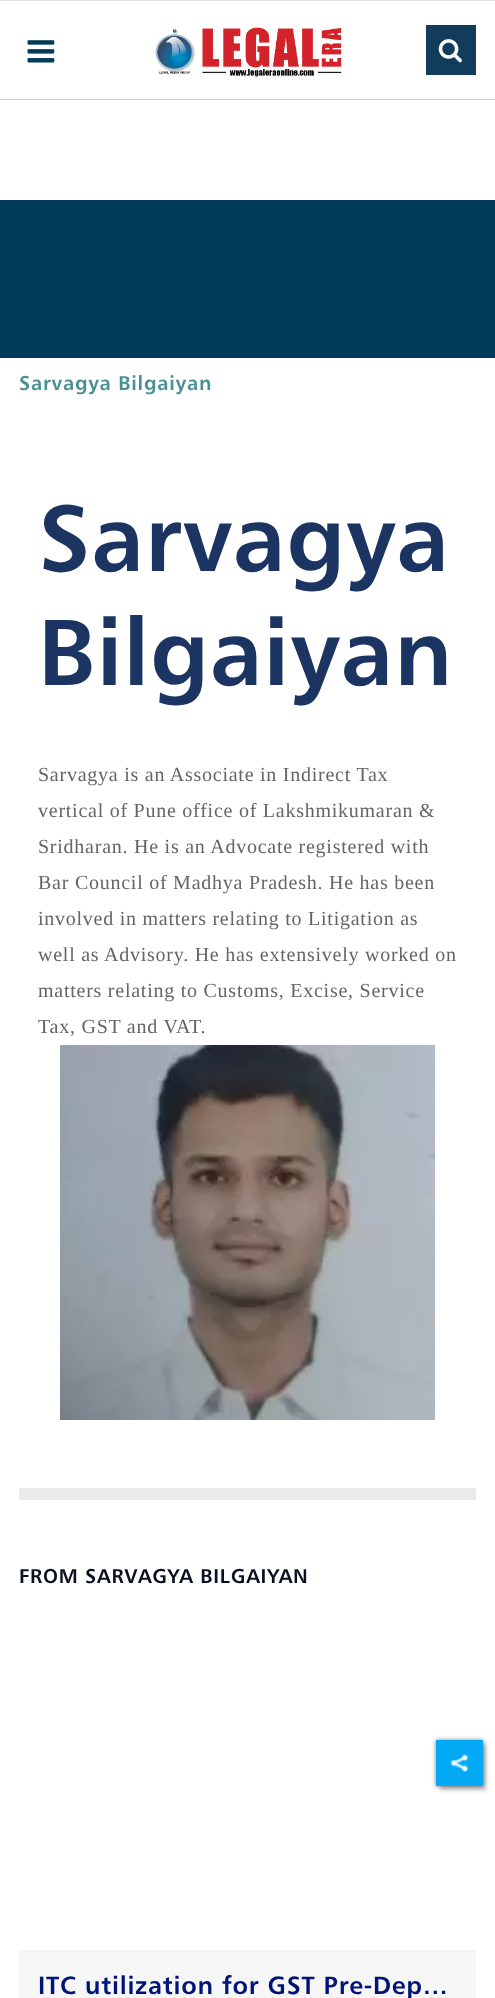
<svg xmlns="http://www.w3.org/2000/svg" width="495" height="1998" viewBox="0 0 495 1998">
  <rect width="100%" height="100%" fill="rgb(255,255,255)"/>
  <rect x="0" y="99" width="495" height="1" fill="rgb(204,204,204)"/>
  <rect x="0" y="0" width="495" height="1" fill="rgb(220,220,220)"/>
  <image x="27" y="40" width="28" height="23" href="pic1.png"/>
  <rect x="426" y="25" width="50" height="50" fill="rgb(18,60,91)"/>
  <image x="438" y="39" width="24" height="24" href="pic2.png"/>
  <image x="155" y="26" width="187" height="51" href="pic3.png"/>
  <rect x="0" y="200" width="495" height="158" fill="rgb(2,60,91)"/>
  <text x="19" y="390" font-family="'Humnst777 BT'" font-size="20" font-weight="bold" letter-spacing="0.75" fill="rgb(73,144,148)">Sarvagya Bilgaiyan</text>
  <rect x="19" y="1488" width="457" height="12" fill="rgb(234,234,234)"/>
  <g font-family="'Humnst777 BT'" font-size="93.75" font-weight="bold" letter-spacing="0.75" fill="rgb(27,52,98)">
    <text>
      <tspan x="38" y="571">Sarvagya</tspan>
      <tspan x="38" y="685">Bilgaiyan</tspan>
    </text>
  </g>
  <g font-family="Liberation Serif" font-size="20" letter-spacing="0.75" fill="rgb(101,101,101)">
    <text>
      <tspan x="38" y="781">Sarvagya is an Associate in Indirect Tax</tspan>
      <tspan x="38" y="817">vertical of Pune office of Lakshmikumaran &amp;</tspan>
      <tspan x="38" y="853">Sridharan. He is an Advocate registered with</tspan>
      <tspan x="38" y="889">Bar Council of Madhya Pradesh. He has been</tspan>
      <tspan x="38" y="925">involved in matters relating to Litigation as</tspan>
      <tspan x="38" y="961">well as Advisory. He has extensively worked on</tspan>
      <tspan x="38" y="997">matters relating to Customs, Excise, Service</tspan>
      <tspan x="38" y="1033">Tax, GST and VAT.</tspan>
    </text>
  </g>
  <image x="60" y="1045" width="375" height="375" href="pic4.png"/>
  <text x="19" y="1583" font-family="'Humnst777 BT'" font-size="20" font-weight="bold" letter-spacing="0.75" fill="rgb(9,16,31)">FROM SARVAGYA BILGAIYAN</text>
  <rect x="19" y="1950" width="457" height="48" fill="rgb(246,246,246)"/>
  <text x="38" y="1994" font-family="'Humnst777 BT'" font-size="25" font-weight="bold" letter-spacing="0.75" fill="rgb(0,19,118)">ITC utilization for GST Pre-Dep…</text>
  <rect x="440" y="1744" width="46" height="46" fill="rgba(0,0,0,0.25)" filter="blur(2px)"/>
  <rect x="436" y="1740" width="47" height="46" fill="rgba(0,0,0,0.5)" filter="blur(2px)"/>
  <rect x="436" y="1740" width="47" height="46" fill="rgb(3,169,244)"/>
  <image x="450" y="1754" width="19" height="18" href="pic5.png"/>
</svg>
